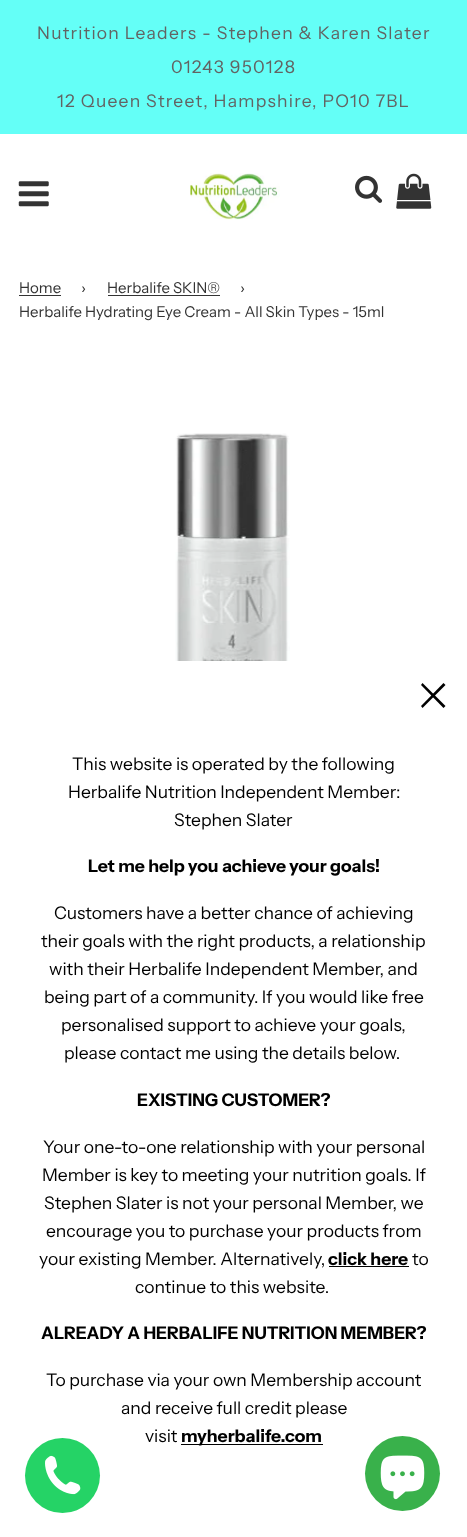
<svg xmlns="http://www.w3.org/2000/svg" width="467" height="1537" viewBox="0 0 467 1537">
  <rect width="100%" height="100%" fill="rgb(255,255,255)"/>
  <rect x="0" y="0" width="467" height="134" fill="rgb(100,255,247)"/>
  <g font-family="Instrument Sans" font-size="17.5" letter-spacing="1.25" fill="rgb(99,99,99)">
    <text x="37" y="39">Nutrition Leaders - Stephen &amp; Karen Slater</text>
    <text x="171" y="73">01243 950128</text>
    <text x="57" y="107">12 Queen Street, Hampshire, PO10 7BL</text>
  </g>
  <image x="18" y="181" width="31" height="26" href="pic1.png"/>
  <image x="190" y="173" width="90" height="47" href="pic2.png"/>
  <image x="355" y="175" width="28" height="28" href="pic3.png"/>
  <image x="396" y="173" width="36" height="36" href="pic4.png"/>
  <text x="19" y="293" font-family="Instrument Sans" font-size="15" fill="rgb(51,51,51)">Home</text>
  <rect x="19" y="295" width="42" height="1" fill="rgb(51,51,51)"/>
  <g font-family="Instrument Sans" font-size="15" fill="rgb(51,51,51)">
    <text x="81" y="293">›</text>
    <text x="107" y="293">Herbalife SKIN®</text>
  </g>
  <rect x="108" y="295" width="112" height="1" fill="rgb(51,51,51)"/>
  <g font-family="Instrument Sans" font-size="15" fill="rgb(51,51,51)">
    <text x="240" y="293">›</text>
    <text x="19" y="317">Herbalife Hydrating Eye Cream - All Skin Types - 15ml</text>
  </g>
  <image x="175" y="433" width="115" height="228" href="pic5.png"/>
  <path d="M443.5 683L445.5 685L422.5 708L421 706Z" fill="rgb(0,0,0)"/>
  <path d="M421 685L422.5 683L445.5 706L443.5 708Z" fill="rgb(0,0,0)"/>
  <g font-family="Instrument Sans" font-size="17.5" fill="rgb(0,0,0)">
    <text x="72" y="770">This website is operated by the following</text>
    <text x="68" y="798">Herbalife Nutrition Independent Member:</text>
    <text x="174" y="826">Stephen Slater</text>
  </g>
  <text x="88" y="872" font-family="Instrument Sans" font-size="17.5" font-weight="bold" fill="rgb(0,0,0)">Let me help you achieve your goals!</text>
  <g font-family="Instrument Sans" font-size="17.5" fill="rgb(0,0,0)">
    <text x="54" y="919">Customers have a better chance of achieving</text>
    <text x="41" y="947">their goals with the right products, a relationship</text>
    <text x="49" y="975">with their Herbalife Independent Member, and</text>
    <text x="44" y="1003">being part of a community. If you would like free</text>
    <text x="61" y="1031">personalised support to achieve your goals,</text>
    <text x="64" y="1059">please contact me using the details below.</text>
  </g>
  <text x="137" y="1106" font-family="Instrument Sans" font-size="17.5" font-weight="bold" fill="rgb(0,0,0)">EXISTING CUSTOMER?</text>
  <g font-family="Instrument Sans" font-size="17.5" fill="rgb(0,0,0)">
    <text x="43" y="1153">Your one-to-one relationship with your personal</text>
    <text x="42" y="1181">Member is key to meeting your nutrition goals. If</text>
    <text x="44" y="1209">Stephen Slater is not your personal Member, we</text>
    <text x="46" y="1237">encourage you to purchase your products from</text>
    <text x="39" y="1265">your existing Member. Alternatively,</text>
  </g>
  <text x="328" y="1265" font-family="Instrument Sans" font-size="17.5" font-weight="bold" fill="rgb(0,0,0)">click here</text>
  <rect x="329" y="1266" width="80" height="1" fill="rgb(0,0,0)"/>
  <g font-family="Instrument Sans" font-size="17.5" fill="rgb(0,0,0)">
    <text x="412" y="1265">to</text>
    <text x="135" y="1293">continue to this website.</text>
  </g>
  <text x="41" y="1339" font-family="Instrument Sans" font-size="17.5" font-weight="bold" fill="rgb(0,0,0)">ALREADY A HERBALIFE NUTRITION MEMBER?</text>
  <g font-family="Instrument Sans" font-size="17.5" fill="rgb(0,0,0)">
    <text x="46" y="1386">To purchase via your own Membership account</text>
    <text x="121" y="1414">and receive full credit please</text>
    <text x="145" y="1442">visit</text>
  </g>
  <rect x="181" y="1444" width="142" height="1" fill="rgb(0,0,0)"/>
  <text x="181" y="1442" font-family="Instrument Sans" font-size="17.5" font-weight="bold" fill="rgb(0,0,0)">myherbalife.com</text>
  <circle cx="62.5" cy="1475.5" r="37.5" fill="rgb(37,211,102)"/>
  <image x="45" y="1455" width="36" height="40" href="pic6.png"/>
  <circle cx="402.5" cy="1473.5" r="37.5" fill="rgb(57,177,75)"/>
  <image x="380" y="1455" width="45" height="45" href="pic7.png"/>
</svg>
